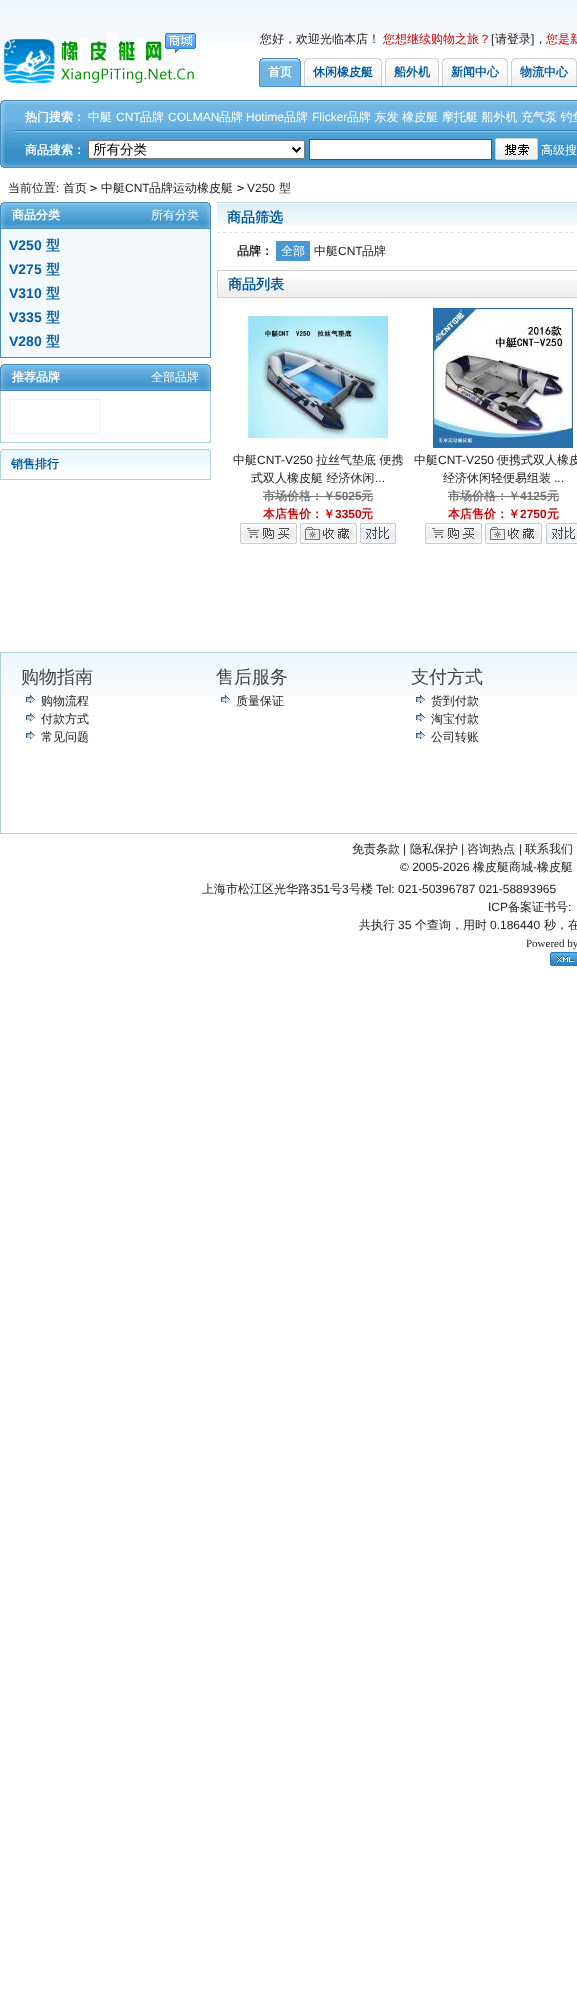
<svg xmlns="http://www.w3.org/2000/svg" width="577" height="1992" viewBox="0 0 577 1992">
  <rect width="100%" height="100%" fill="rgb(255,255,255)"/>
  <image x="0" y="0" width="577" height="43" href="pic1.png"/>
  <image x="0" y="32" width="200" height="51" href="pic2.png"/>
  <text x="260" y="43" font-family="WenQuanYi Zen Hei" font-size="12" font-weight="500" fill="rgb(34,34,34)">您好，欢迎光临本店！</text>
  <text x="383" y="43" font-family="WenQuanYi Zen Hei" font-size="12" font-weight="500" fill="rgb(204,0,0)">您想继续购物之旅？</text>
  <text x="491" y="43" font-family="Liberation Sans" font-size="12" fill="rgb(34,34,34)">[</text>
  <text x="495" y="43" font-family="WenQuanYi Zen Hei" font-size="12" font-weight="500" fill="rgb(34,34,34)">请登录 ，</text>
  <text x="546" y="43" font-family="WenQuanYi Zen Hei" font-size="12" font-weight="500" fill="rgb(204,0,0)">您是新</text>
  <text x="531" y="43" font-family="Liberation Sans" font-size="12" fill="rgb(34,34,34)">]</text>
  <rect x="260" y="86" width="317" height="1" fill="rgb(71,144,188)"/>
  <image x="264" y="58" width="32" height="28" href="pic3.png"/>
  <image x="259" y="58" width="5" height="28" href="pic4.png"/>
  <text x="268" y="76" font-family="WenQuanYi Zen Hei" font-size="12" font-weight="bold" fill="rgb(255,255,255)">首页</text>
  <image x="296" y="58" width="5" height="28" href="pic5.png"/>
  <image x="309" y="58" width="68" height="28" href="pic6.png"/>
  <image x="304" y="58" width="5" height="28" href="pic7.png"/>
  <text x="313" y="76" font-family="WenQuanYi Zen Hei" font-size="12" font-weight="bold" fill="rgb(0,90,160)">休闲橡皮艇</text>
  <image x="377" y="58" width="5" height="28" href="pic8.png"/>
  <image x="390" y="58" width="44" height="28" href="pic9.png"/>
  <image x="385" y="58" width="5" height="28" href="pic7.png"/>
  <text x="394" y="76" font-family="WenQuanYi Zen Hei" font-size="12" font-weight="bold" fill="rgb(0,90,160)">船外机</text>
  <image x="434" y="58" width="5" height="28" href="pic8.png"/>
  <image x="447" y="58" width="56" height="28" href="pic10.png"/>
  <image x="442" y="58" width="5" height="28" href="pic7.png"/>
  <text x="451" y="76" font-family="WenQuanYi Zen Hei" font-size="12" font-weight="bold" fill="rgb(0,90,160)">新闻中心</text>
  <image x="503" y="58" width="5" height="28" href="pic8.png"/>
  <image x="516" y="58" width="56" height="28" href="pic10.png"/>
  <image x="511" y="58" width="5" height="28" href="pic7.png"/>
  <text x="520" y="76" font-family="WenQuanYi Zen Hei" font-size="12" font-weight="bold" fill="rgb(0,90,160)">物流中心</text>
  <image x="572" y="58" width="5" height="28" href="pic8.png"/>
  <image x="15" y="100" width="562" height="68" href="pic11.png"/>
  <image x="0" y="100" width="15" height="68" href="pic12.png"/>
  <text x="25" y="121" font-family="WenQuanYi Zen Hei" font-size="12" font-weight="bold" fill="rgb(255,255,255)">热门搜索：</text>
  <text x="88" y="121" font-family="WenQuanYi Zen Hei" font-size="12" font-weight="500" fill="rgb(255,255,255)">中艇</text>
  <text x="116" y="121" font-family="Liberation Sans" font-size="12" fill="rgb(255,255,255)">CNT</text>
  <text x="140" y="121" font-family="WenQuanYi Zen Hei" font-size="12" font-weight="500" fill="rgb(255,255,255)">品牌</text>
  <text x="168" y="121" font-family="Liberation Sans" font-size="12" fill="rgb(255,255,255)">COLMAN</text>
  <text x="219" y="121" font-family="WenQuanYi Zen Hei" font-size="12" font-weight="500" fill="rgb(255,255,255)">品牌</text>
  <text x="246" y="121" font-family="Liberation Sans" font-size="12" fill="rgb(255,255,255)">Hotime</text>
  <text x="284" y="121" font-family="WenQuanYi Zen Hei" font-size="12" font-weight="500" fill="rgb(255,255,255)">品牌</text>
  <text x="312" y="121" font-family="Liberation Sans" font-size="12" fill="rgb(255,255,255)">Flicker</text>
  <text x="347" y="121" font-family="WenQuanYi Zen Hei" font-size="12" font-weight="500" fill="rgb(255,255,255)">品牌 东发 橡皮艇 摩托艇 船外机 充气泵 钓鱼</text>
  <text x="25" y="154" font-family="WenQuanYi Zen Hei" font-size="12" font-weight="bold" fill="rgb(255,255,255)">商品搜索：</text>
  <rect x="88.5" y="140.5" width="216" height="18" rx="1.5" fill="rgb(255,255,255)" stroke="rgb(118,118,118)"/>
  <path d="M292.5 147.5L296.5 151.5L300.5 147.5" fill="none" stroke="rgb(0,0,0)" stroke-width="2"/>
  <text x="93" y="154" font-family="WenQuanYi Zen Hei" font-size="13.5" font-weight="500" fill="rgb(0,0,0)">所有分类</text>
  <rect x="309.5" y="139.5" width="182" height="20" fill="rgb(255,255,255)" stroke="rgb(28,97,142)"/>
  <image x="495" y="138" width="43" height="22" href="pic13.png"/>
  <text x="541" y="154" font-family="WenQuanYi Zen Hei" font-size="12" font-weight="500" fill="rgb(255,255,255)">高级搜</text>
  <text x="8" y="192" font-family="WenQuanYi Zen Hei" font-size="12" font-weight="500" fill="rgb(34,34,34)">当前位置</text>
  <text x="56" y="192" font-family="Liberation Sans" font-size="12" fill="rgb(34,34,34)">:</text>
  <text x="63" y="192" font-family="WenQuanYi Zen Hei" font-size="12" font-weight="500" fill="rgb(34,34,34)">首页</text>
  <text x="90" y="192" font-family="DejaVu Sans Mono" font-size="12" fill="rgb(34,34,34)">&gt;</text>
  <text x="101" y="192" font-family="WenQuanYi Zen Hei" font-size="12" font-weight="500" fill="rgb(34,34,34)">中艇</text>
  <text x="125" y="192" font-family="Liberation Sans" font-size="12" fill="rgb(34,34,34)">CNT</text>
  <text x="149" y="192" font-family="WenQuanYi Zen Hei" font-size="12" font-weight="500" fill="rgb(34,34,34)">品牌运动橡皮艇</text>
  <text x="237" y="192" font-family="DejaVu Sans Mono" font-size="12" fill="rgb(34,34,34)">&gt;</text>
  <text x="247" y="192" font-family="Liberation Sans" font-size="12" fill="rgb(34,34,34)">V250</text>
  <text x="279" y="192" font-family="WenQuanYi Zen Hei" font-size="12" font-weight="500" fill="rgb(34,34,34)">型</text>
  <image x="7" y="202" width="197" height="27" href="pic14.png"/>
  <image x="0" y="202" width="7" height="27" href="pic15.png"/>
  <text x="12" y="219" font-family="WenQuanYi Zen Hei" font-size="12" font-weight="bold" fill="rgb(255,255,255)">商品分类</text>
  <text x="151" y="219" font-family="WenQuanYi Zen Hei" font-size="12" font-weight="500" fill="rgb(255,255,255)">所有分类</text>
  <image x="204" y="202" width="7" height="27" href="pic16.png"/>
  <rect x="210" y="229" width="1" height="129" fill="rgb(70,142,190)"/>
  <rect x="0" y="357" width="211" height="1" fill="rgb(70,142,190)"/>
  <rect x="0" y="229" width="1" height="129" fill="rgb(70,142,190)"/>
  <rect x="1" y="229" width="209" height="128" fill="rgb(244,249,253)"/>
  <text x="9" y="250" font-family="Liberation Sans" font-size="14" font-weight="bold" fill="rgb(2,95,168)">V250</text>
  <text x="46" y="250" font-family="WenQuanYi Zen Hei" font-size="14" font-weight="bold" fill="rgb(2,95,168)">型</text>
  <text x="9" y="274" font-family="Liberation Sans" font-size="14" font-weight="bold" fill="rgb(2,95,168)">V275</text>
  <text x="46" y="274" font-family="WenQuanYi Zen Hei" font-size="14" font-weight="bold" fill="rgb(2,95,168)">型</text>
  <text x="9" y="298" font-family="Liberation Sans" font-size="14" font-weight="bold" fill="rgb(2,95,168)">V310</text>
  <text x="46" y="298" font-family="WenQuanYi Zen Hei" font-size="14" font-weight="bold" fill="rgb(2,95,168)">型</text>
  <text x="9" y="322" font-family="Liberation Sans" font-size="14" font-weight="bold" fill="rgb(2,95,168)">V335</text>
  <text x="46" y="322" font-family="WenQuanYi Zen Hei" font-size="14" font-weight="bold" fill="rgb(2,95,168)">型</text>
  <text x="9" y="346" font-family="Liberation Sans" font-size="14" font-weight="bold" fill="rgb(2,95,168)">V280</text>
  <text x="46" y="346" font-family="WenQuanYi Zen Hei" font-size="14" font-weight="bold" fill="rgb(2,95,168)">型</text>
  <image x="7" y="364" width="197" height="27" href="pic14.png"/>
  <image x="0" y="364" width="7" height="27" href="pic15.png"/>
  <text x="12" y="381" font-family="WenQuanYi Zen Hei" font-size="12" font-weight="bold" fill="rgb(255,255,255)">推荐品牌</text>
  <text x="151" y="381" font-family="WenQuanYi Zen Hei" font-size="12" font-weight="500" fill="rgb(255,255,255)">全部品牌</text>
  <image x="204" y="364" width="7" height="27" href="pic16.png"/>
  <rect x="210" y="391" width="1" height="52" fill="rgb(178,210,221)"/>
  <rect x="0" y="442" width="211" height="1" fill="rgb(178,210,221)"/>
  <rect x="0" y="391" width="1" height="52" fill="rgb(178,210,221)"/>
  <rect x="9.5" y="399.5" width="91" height="34" fill="none" stroke="rgb(239,239,239)"/>
  <rect x="0.5" y="449.5" width="210" height="30" fill="none" stroke="rgb(178,210,221)"/>
  <image x="1" y="450" width="209" height="21" href="pic17.png"/>
  <image x="0" y="449" width="5" height="4" href="pic18.png"/>
  <image x="206" y="449" width="5" height="4" href="pic19.png"/>
  <text x="11" y="468" font-family="WenQuanYi Zen Hei" font-size="12" font-weight="bold" fill="rgb(0,90,160)">销售排行</text>
  <image x="217" y="202" width="360" height="24" href="pic20.png"/>
  <text x="227" y="222" font-family="WenQuanYi Zen Hei" font-size="14" font-weight="bold" fill="rgb(0,90,160)">商品筛选</text>
  <image x="217" y="232" width="357" height="1" href="pic21.png"/>
  <text x="237" y="255" font-family="WenQuanYi Zen Hei" font-size="12" font-weight="bold" fill="rgb(34,34,34)">品牌：</text>
  <rect x="276" y="241" width="34" height="20" fill="rgb(69,152,210)"/>
  <text x="281" y="255" font-family="WenQuanYi Zen Hei" font-size="12" font-weight="500" fill="rgb(255,255,255)">全部</text>
  <text x="314" y="255" font-family="WenQuanYi Zen Hei" font-size="12" font-weight="500" fill="rgb(34,34,34)">中艇</text>
  <text x="338" y="255" font-family="Liberation Sans" font-size="12" fill="rgb(34,34,34)">CNT</text>
  <text x="362" y="255" font-family="WenQuanYi Zen Hei" font-size="12" font-weight="500" fill="rgb(34,34,34)">品牌</text>
  <image x="218" y="279" width="359" height="18" href="pic22.png"/>
  <rect x="217.5" y="270.5" width="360" height="27" fill="none" stroke="rgb(207,207,207)"/>
  <text x="228" y="289" font-family="WenQuanYi Zen Hei" font-size="14" font-weight="bold" fill="rgb(0,90,160)">商品列表</text>
  <image x="248" y="310" width="140" height="138" href="pic23.png"/>
  <text x="233" y="464" font-family="WenQuanYi Zen Hei" font-size="12" font-weight="500" fill="rgb(34,34,34)">中艇</text>
  <text x="257" y="464" font-family="Liberation Sans" font-size="12" fill="rgb(34,34,34)">CNT-V250</text>
  <g font-family="WenQuanYi Zen Hei" font-size="12" font-weight="500" fill="rgb(34,34,34)">
    <text x="316" y="464">拉丝气垫底 便携</text>
    <text x="251" y="482">式双人橡皮艇 经济休闲</text>
  </g>
  <text x="375" y="482" font-family="Liberation Sans" font-size="12" fill="rgb(34,34,34)">...</text>
  <text x="263" y="500" font-family="WenQuanYi Zen Hei" font-size="12" font-weight="bold" fill="rgb(117,117,117)">市场价格：￥</text>
  <text x="335" y="500" font-family="Liberation Sans" font-size="12" font-weight="bold" fill="rgb(117,117,117)">5025</text>
  <rect x="263" y="496" width="110" height="1" fill="rgb(117,117,117)"/>
  <text x="361" y="500" font-family="WenQuanYi Zen Hei" font-size="12" font-weight="bold" fill="rgb(117,117,117)">元</text>
  <text x="263" y="518" font-family="WenQuanYi Zen Hei" font-size="12" font-weight="bold" fill="rgb(204,0,0)">本店售价：￥</text>
  <text x="335" y="518" font-family="Liberation Sans" font-size="12" font-weight="bold" fill="rgb(204,0,0)">3350</text>
  <text x="361" y="518" font-family="WenQuanYi Zen Hei" font-size="12" font-weight="bold" fill="rgb(204,0,0)">元</text>
  <image x="240" y="523" width="57" height="21" href="pic24.png"/>
  <image x="300" y="523" width="57" height="21" href="pic25.png"/>
  <image x="360" y="523" width="36" height="21" href="pic26.png"/>
  <image x="433" y="308" width="140" height="140" href="pic27.png"/>
  <text x="414" y="464" font-family="WenQuanYi Zen Hei" font-size="12" font-weight="500" fill="rgb(34,34,34)">中艇</text>
  <text x="438" y="464" font-family="Liberation Sans" font-size="12" fill="rgb(34,34,34)">CNT-V250</text>
  <g font-family="WenQuanYi Zen Hei" font-size="12" font-weight="500" fill="rgb(34,34,34)">
    <text x="497" y="464">便携式双人橡皮</text>
    <text x="443" y="482">经济休闲轻便易组装</text>
  </g>
  <text x="554" y="482" font-family="Liberation Sans" font-size="12" fill="rgb(34,34,34)">...</text>
  <text x="448" y="500" font-family="WenQuanYi Zen Hei" font-size="12" font-weight="bold" fill="rgb(117,117,117)">市场价格：￥</text>
  <text x="520" y="500" font-family="Liberation Sans" font-size="12" font-weight="bold" fill="rgb(117,117,117)">4125</text>
  <rect x="448" y="496" width="111" height="1" fill="rgb(117,117,117)"/>
  <text x="547" y="500" font-family="WenQuanYi Zen Hei" font-size="12" font-weight="bold" fill="rgb(117,117,117)">元</text>
  <text x="448" y="518" font-family="WenQuanYi Zen Hei" font-size="12" font-weight="bold" fill="rgb(204,0,0)">本店售价：￥</text>
  <text x="520" y="518" font-family="Liberation Sans" font-size="12" font-weight="bold" fill="rgb(204,0,0)">2750</text>
  <text x="547" y="518" font-family="WenQuanYi Zen Hei" font-size="12" font-weight="bold" fill="rgb(204,0,0)">元</text>
  <image x="425" y="523" width="57" height="21" href="pic24.png"/>
  <image x="485" y="523" width="57" height="21" href="pic25.png"/>
  <image x="546" y="523" width="31" height="21" href="pic28.png"/>
  <image x="1" y="653" width="576" height="43" href="pic29.png"/>
  <rect x="0.5" y="652.5" width="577" height="181" fill="none" stroke="rgb(178,210,221)"/>
  <text x="21" y="683" font-family="WenQuanYi Zen Hei" font-size="18" font-weight="500" fill="rgb(59,67,70)">购物指南</text>
  <image x="26" y="695" width="9" height="8" href="pic30.png"/>
  <text x="41" y="705" font-family="WenQuanYi Zen Hei" font-size="12" font-weight="500" fill="rgb(34,34,34)">购物流程</text>
  <image x="26" y="713" width="9" height="8" href="pic31.png"/>
  <text x="41" y="723" font-family="WenQuanYi Zen Hei" font-size="12" font-weight="500" fill="rgb(34,34,34)">付款方式</text>
  <image x="26" y="731" width="9" height="8" href="pic31.png"/>
  <text x="41" y="741" font-family="WenQuanYi Zen Hei" font-size="12" font-weight="500" fill="rgb(34,34,34)">常见问题</text>
  <text x="216" y="683" font-family="WenQuanYi Zen Hei" font-size="18" font-weight="500" fill="rgb(59,67,70)">售后服务</text>
  <image x="221" y="695" width="9" height="8" href="pic32.png"/>
  <text x="236" y="705" font-family="WenQuanYi Zen Hei" font-size="12" font-weight="500" fill="rgb(34,34,34)">质量保证</text>
  <text x="411" y="683" font-family="WenQuanYi Zen Hei" font-size="18" font-weight="500" fill="rgb(59,67,70)">支付方式</text>
  <image x="416" y="695" width="9" height="8" href="pic30.png"/>
  <text x="431" y="705" font-family="WenQuanYi Zen Hei" font-size="12" font-weight="500" fill="rgb(34,34,34)">货到付款</text>
  <image x="416" y="713" width="9" height="8" href="pic31.png"/>
  <text x="431" y="723" font-family="WenQuanYi Zen Hei" font-size="12" font-weight="500" fill="rgb(34,34,34)">淘宝付款</text>
  <image x="416" y="731" width="9" height="8" href="pic31.png"/>
  <g font-family="WenQuanYi Zen Hei" font-size="12" font-weight="500" fill="rgb(34,34,34)">
    <text x="431" y="741">公司转账</text>
    <text x="352" y="853">免责条款</text>
  </g>
  <text x="403" y="853" font-family="Liberation Sans" font-size="12" fill="rgb(34,34,34)">|</text>
  <text x="410" y="853" font-family="WenQuanYi Zen Hei" font-size="12" font-weight="500" fill="rgb(34,34,34)">隐私保护</text>
  <text x="461" y="853" font-family="Liberation Sans" font-size="12" fill="rgb(34,34,34)">|</text>
  <text x="467" y="853" font-family="WenQuanYi Zen Hei" font-size="12" font-weight="500" fill="rgb(34,34,34)">咨询热点</text>
  <text x="519" y="853" font-family="Liberation Sans" font-size="12" fill="rgb(34,34,34)">|</text>
  <text x="525" y="853" font-family="WenQuanYi Zen Hei" font-size="12" font-weight="500" fill="rgb(34,34,34)">联系我们</text>
  <text x="400" y="871" font-family="Liberation Sans" font-size="12" fill="rgb(34,34,34)">© 2005-2026</text>
  <text x="473" y="871" font-family="WenQuanYi Zen Hei" font-size="12" font-weight="500" fill="rgb(34,34,34)">橡皮艇商城</text>
  <text x="533" y="871" font-family="Liberation Sans" font-size="12" fill="rgb(34,34,34)">-</text>
  <g font-family="WenQuanYi Zen Hei" font-size="12" font-weight="500" fill="rgb(34,34,34)">
    <text x="537" y="871">橡皮艇</text>
    <text x="202" y="893">上海市松江区光华路</text>
  </g>
  <text x="310" y="893" font-family="Liberation Sans" font-size="12" fill="rgb(34,34,34)">351</text>
  <text x="330" y="893" font-family="WenQuanYi Zen Hei" font-size="12" font-weight="500" fill="rgb(34,34,34)">号</text>
  <text x="342" y="893" font-family="Liberation Sans" font-size="12" fill="rgb(34,34,34)">3</text>
  <text x="349" y="893" font-family="WenQuanYi Zen Hei" font-size="12" font-weight="500" fill="rgb(34,34,34)">号楼</text>
  <g font-family="Liberation Sans" font-size="12" fill="rgb(34,34,34)">
    <text x="376" y="893">Tel: 021-50396787 021-58893965</text>
    <text x="488" y="911">ICP</text>
  </g>
  <text x="508" y="911" font-family="WenQuanYi Zen Hei" font-size="12" font-weight="500" fill="rgb(34,34,34)">备案证书号</text>
  <text x="568" y="911" font-family="Liberation Sans" font-size="12" fill="rgb(34,34,34)">:</text>
  <text x="359" y="929" font-family="WenQuanYi Zen Hei" font-size="12" font-weight="500" fill="rgb(34,34,34)">共执行</text>
  <text x="398" y="929" font-family="Liberation Sans" font-size="12" fill="rgb(34,34,34)">35</text>
  <text x="415" y="929" font-family="WenQuanYi Zen Hei" font-size="12" font-weight="500" fill="rgb(34,34,34)">个查询，用时</text>
  <text x="490" y="929" font-family="Liberation Sans" font-size="12" fill="rgb(34,34,34)">0.186440</text>
  <text x="544" y="929" font-family="WenQuanYi Zen Hei" font-size="12" font-weight="500" fill="rgb(34,34,34)">秒，在</text>
  <text x="526" y="947" font-family="Liberation Serif" font-size="11" fill="rgb(34,34,34)">Powered by</text>
  <image x="550" y="952" width="27" height="14" href="pic33.png"/>
</svg>
